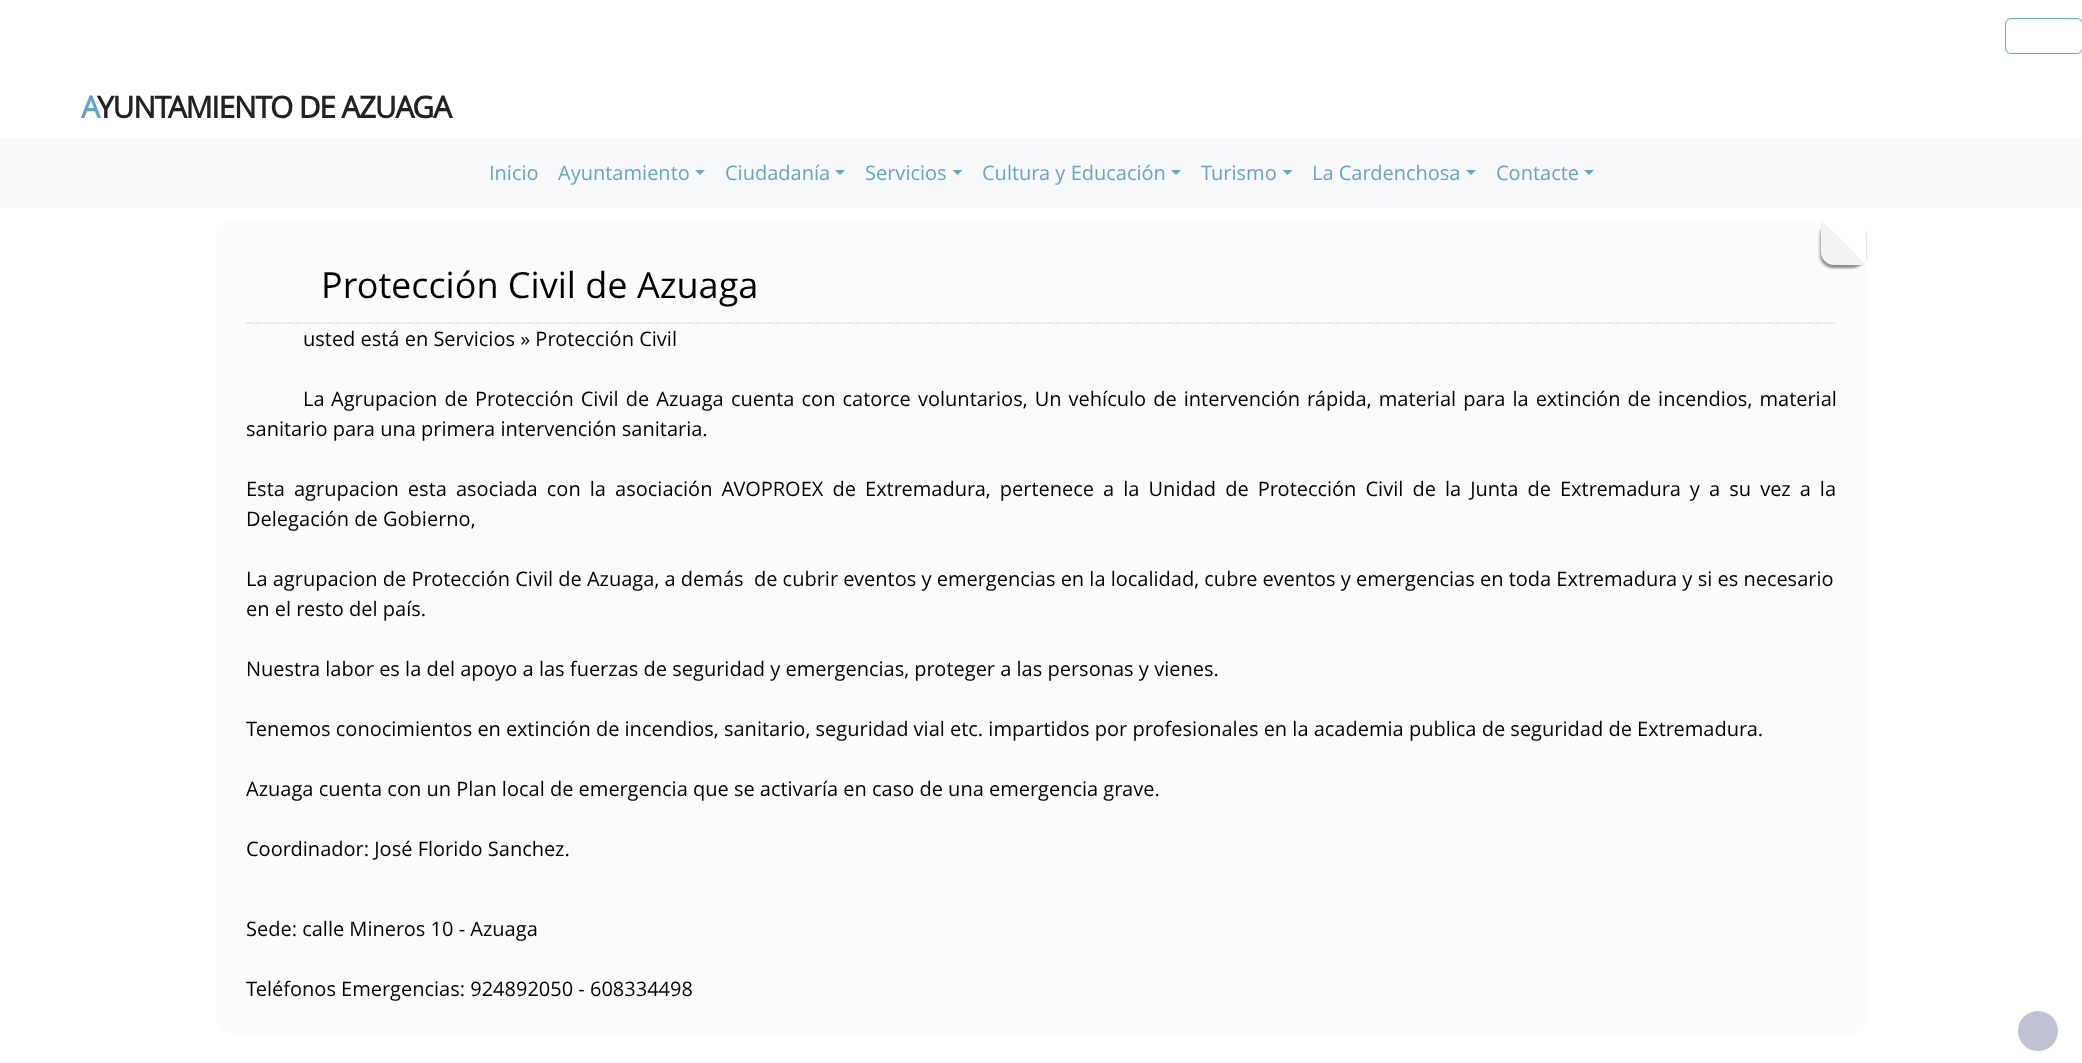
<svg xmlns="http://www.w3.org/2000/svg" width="2082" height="1063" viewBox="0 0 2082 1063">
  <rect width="100%" height="100%" fill="rgb(255,255,255)"/>
  <rect x="2005.5" y="18.5" width="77" height="35" rx="5.5" fill="none" stroke="rgb(104,164,196)"/>
  <text x="81" y="118" font-family="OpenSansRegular" font-size="30" font-weight="bold" letter-spacing="-1.25" fill="rgb(104,164,196)">A</text>
  <text x="97" y="118" font-family="OpenSansRegular" font-size="30" font-weight="bold" letter-spacing="-1.25" fill="rgb(34,34,34)">YUNTAMIENTO DE AZUAGA</text>
  <rect x="0" y="138" width="2082" height="70" fill="rgb(248,249,250)"/>
  <g font-family="OpenSansRegular" font-size="20" fill="rgb(104,164,196)">
    <text x="489" y="180">Inicio</text>
    <text x="558" y="180">Ayuntamiento</text>
  </g>
  <path d="M695 170H705L700 175Z" fill="rgb(104,164,196)"/>
  <text x="725" y="180" font-family="OpenSansRegular" font-size="20" fill="rgb(104,164,196)">Ciudadanía</text>
  <path d="M835 170H845L840 175Z" fill="rgb(104,164,196)"/>
  <text x="865" y="180" font-family="OpenSansRegular" font-size="20" fill="rgb(104,164,196)">Servicios</text>
  <path d="M952.5 170H962.5L957.5 175Z" fill="rgb(104,164,196)"/>
  <text x="982" y="180" font-family="OpenSansRegular" font-size="20" fill="rgb(104,164,196)">Cultura y Educación</text>
  <path d="M1171 170H1181L1176 175Z" fill="rgb(104,164,196)"/>
  <text x="1201" y="180" font-family="OpenSansRegular" font-size="20" fill="rgb(104,164,196)">Turismo</text>
  <path d="M1282.5 170H1292.5L1287.5 175Z" fill="rgb(104,164,196)"/>
  <text x="1312" y="180" font-family="OpenSansRegular" font-size="20" fill="rgb(104,164,196)">La Cardenchosa</text>
  <path d="M1466 170H1476L1471 175Z" fill="rgb(104,164,196)"/>
  <text x="1496" y="180" font-family="OpenSansRegular" font-size="20" fill="rgb(104,164,196)">Contacte</text>
  <path d="M1584 170H1594L1589 175Z" fill="rgb(104,164,196)"/>
  <path d="M229 220H1866V1021C1866 1028 1860 1034 1853 1034H229C222 1034 216 1028 216 1021V233C216 226 222 220 229 220Z" fill="rgb(252,252,252)"/>
  <rect x="1819" y="223" width="45" height="45" rx="13" fill="rgba(0,0,0,0.2)" filter="blur(1px)"/>
  <rect x="1821" y="223" width="45" height="45" rx="13" fill="rgba(0,0,0,0.3)" filter="blur(1px)"/>
  <path d="M1821 220H1866V265H1834C1827 265 1821 259 1821 252Z" fill="rgb(243,243,243)"/>
  <path d="M1821 220L1844 242L1866 220Z" fill="rgb(255,255,255)"/>
  <path d="M1866 220L1844 242L1866 265Z" fill="rgb(255,255,255)"/>
  <path d="M246 323H1836" fill="none" stroke="rgb(192,192,192)" stroke-width="1.2" stroke-dasharray="1.25 1.25"/>
  <text x="321" y="298" font-family="OpenSansRegular" font-size="36" fill="rgb(0,0,0)">Protección Civil de Azuaga</text>
  <g font-family="OpenSansRegular" font-size="20" fill="rgb(0,0,0)">
    <text x="303" y="346">usted está en Servicios » Protección Civil</text>
    <text x="303" y="406">La</text>
    <text x="331" y="406" word-spacing="1.9">Agrupacion de Protección Civil de Azuaga</text>
    <text x="731" y="406" word-spacing="1.9">cuenta con catorce voluntarios, Un vehículo de intervención rápida, material para la extinción de incendios, material</text>
    <text x="246" y="436">sanitario para una primera intervención sanitaria.</text>
    <text>
      <tspan x="246" y="496" word-spacing="3.9">Esta agrupacion esta asociada con la asociación AVOPROEX de Extremadura, pertenece a la Unidad de Protección Civil de la Junta de Extremadura y a su vez a la</tspan>
      <tspan x="246" y="526">Delegación de Gobierno,</tspan>
    </text>
    <text xml:space="preserve"><tspan x="246" y="586">La agrupacion de Protección Civil de Azuaga, a demás  de cubrir eventos y emergencias en la localidad, cubre eventos y emergencias en toda Extremadura y si es necesario</tspan><tspan x="246" y="616">en el resto del país.</tspan></text>
    <text x="246" y="676">Nuestra labor es la del apoyo a las fuerzas de seguridad y emergencias, proteger a las personas y vienes.</text>
    <text x="246" y="736">Tenemos conocimientos en extinción de incendios, sanitario, seguridad vial etc. impartidos por profesionales en la academia publica de seguridad de Extremadura.</text>
    <text x="246" y="796">Azuaga cuenta con un Plan local de emergencia que se activaría en caso de una emergencia grave.</text>
    <text x="246" y="856">Coordinador: José Florido Sanchez.</text>
    <text x="246" y="936">Sede: calle Mineros 10 - Azuaga</text>
    <text x="246" y="996">Teléfonos Emergencias: 924892050 - 608334498</text>
  </g>
  <circle cx="2038" cy="1031" r="20" fill="rgb(194,194,214)"/>
</svg>
